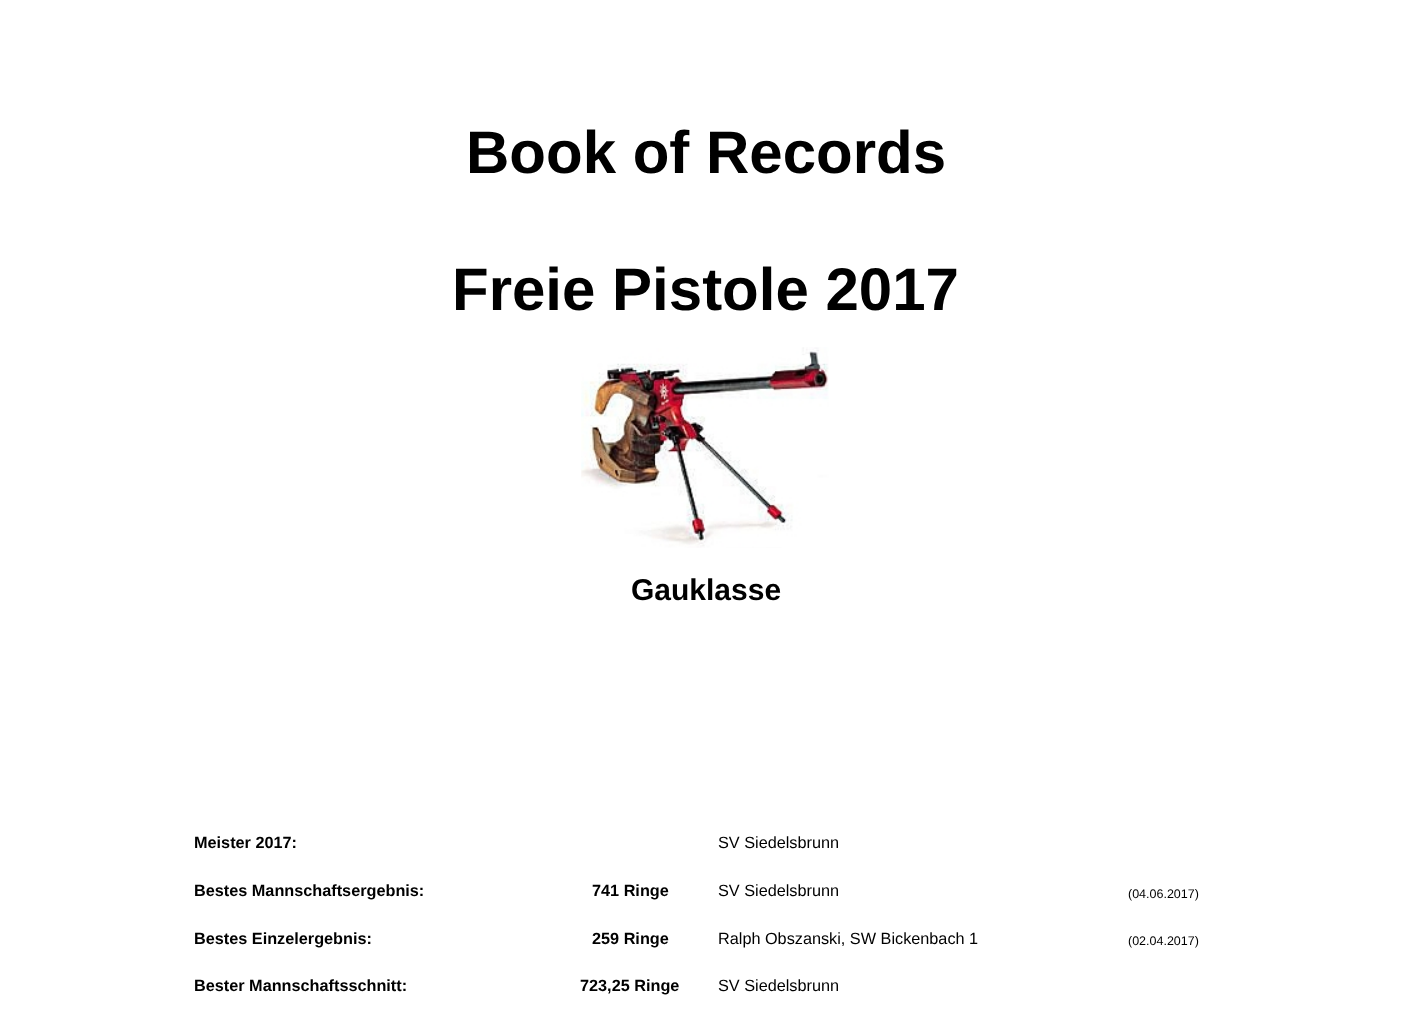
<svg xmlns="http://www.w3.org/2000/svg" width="1411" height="1030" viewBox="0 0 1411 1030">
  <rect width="100%" height="100%" fill="rgb(255,255,255)"/>
  <g font-family="Liberation Sans" font-size="60" font-weight="bold" fill="rgb(0,0,0)">
    <text x="466" y="173">Book of Records</text>
    <text x="452" y="310">Freie Pistole 2017</text>
  </g>
  <image x="581" y="347" width="248" height="201" href="pic1.png"/>
  <text x="631" y="600" font-family="Liberation Sans" font-size="30" font-weight="bold" fill="rgb(0,0,0)">Gauklasse</text>
  <text x="194" y="848" font-family="Liberation Sans" font-size="16.25" font-weight="bold" fill="rgb(0,0,0)">Meister 2017:</text>
  <text x="718" y="848" font-family="Liberation Sans" font-size="16.25" fill="rgb(0,0,0)">SV Siedelsbrunn</text>
  <g font-family="Liberation Sans" font-size="16.25" font-weight="bold" fill="rgb(0,0,0)">
    <text x="194" y="896">Bestes Mannschaftsergebnis:</text>
    <text x="592" y="896">741 Ringe</text>
  </g>
  <text x="718" y="896" font-family="Liberation Sans" font-size="16.25" fill="rgb(0,0,0)">SV Siedelsbrunn</text>
  <text x="1128" y="898" font-family="Liberation Sans" font-size="12.5" fill="rgb(0,0,0)">(04.06.2017)</text>
  <g font-family="Liberation Sans" font-size="16.25" font-weight="bold" fill="rgb(0,0,0)">
    <text x="194" y="944">Bestes Einzelergebnis:</text>
    <text x="592" y="944">259 Ringe</text>
  </g>
  <text x="718" y="944" font-family="Liberation Sans" font-size="16.25" fill="rgb(0,0,0)">Ralph Obszanski, SW Bickenbach 1</text>
  <text x="1128" y="945" font-family="Liberation Sans" font-size="12.5" fill="rgb(0,0,0)">(02.04.2017)</text>
  <g font-family="Liberation Sans" font-size="16.25" font-weight="bold" fill="rgb(0,0,0)">
    <text x="194" y="991">Bester Mannschaftsschnitt:</text>
    <text x="580" y="991">723,25 Ringe</text>
  </g>
  <text x="718" y="991" font-family="Liberation Sans" font-size="16.25" fill="rgb(0,0,0)">SV Siedelsbrunn</text>
</svg>
